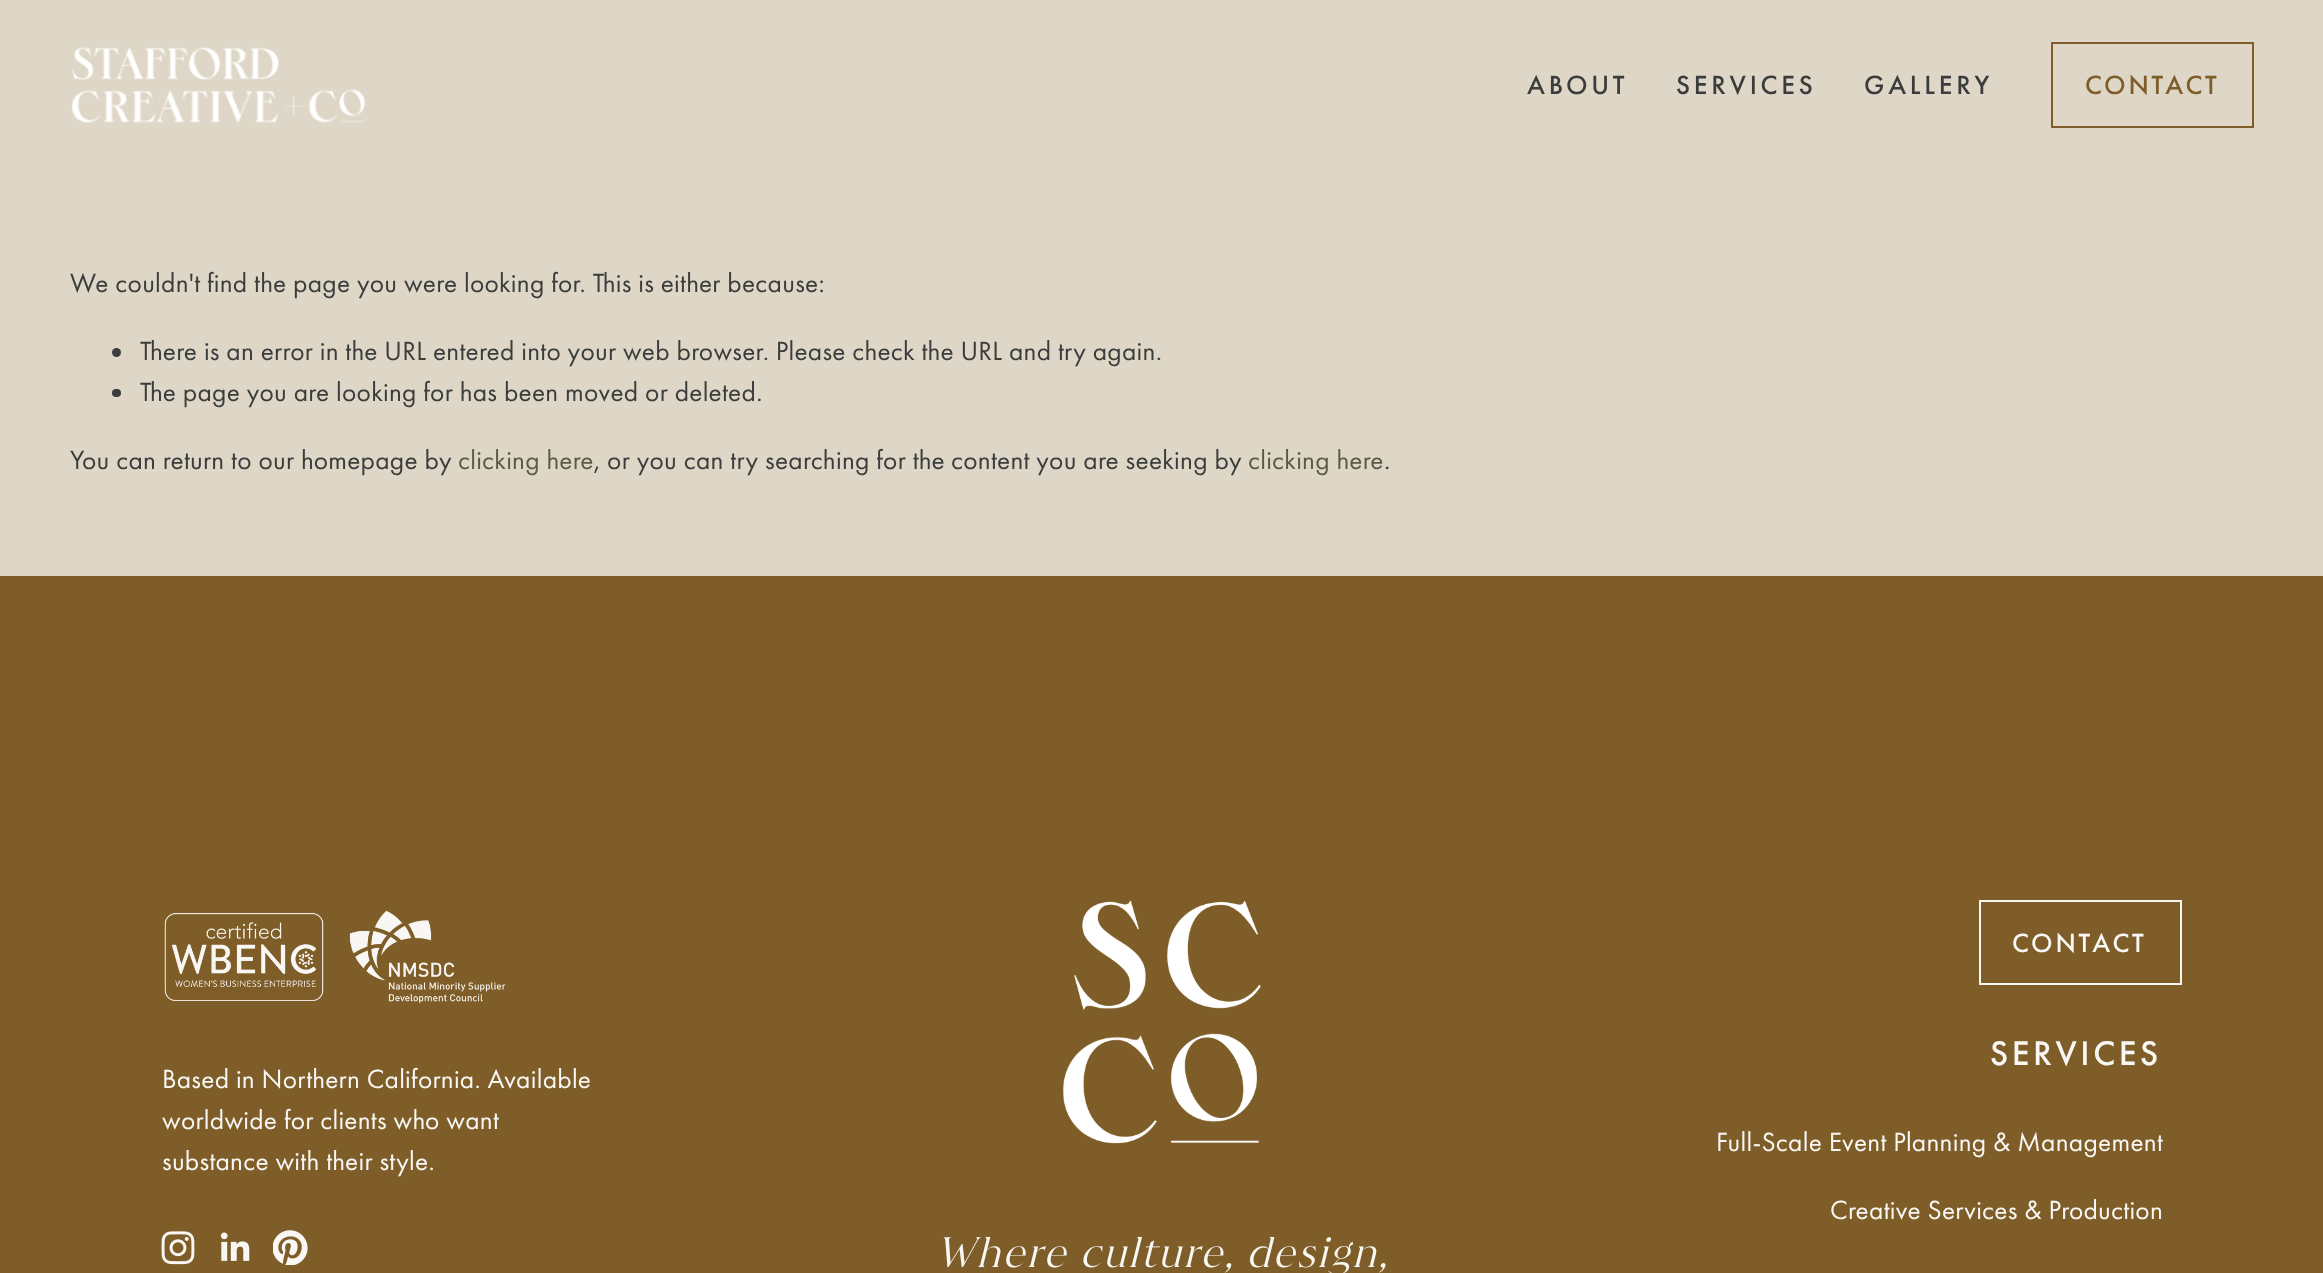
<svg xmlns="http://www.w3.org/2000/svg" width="2323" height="1273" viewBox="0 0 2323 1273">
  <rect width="100%" height="100%" fill="rgb(222,215,199)"/>
  <image x="71" y="47" width="294" height="76" href="pic1.png"/>
  <g font-family="'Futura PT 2'" font-size="27.3" font-weight="500" letter-spacing="3.75" fill="rgb(59,61,60)">
    <text x="1527" y="94">ABOUT</text>
    <text x="1676" y="94">SERVICES</text>
    <text x="1864" y="94">GALLERY</text>
  </g>
  <rect x="2052" y="43" width="201" height="84" fill="none" stroke="rgb(126,93,40)" stroke-width="2"/>
  <text x="2085" y="94" font-family="'Futura PT 2'" font-size="27.3" font-weight="500" letter-spacing="2.75" fill="rgb(126,93,40)">CONTACT</text>
  <text x="70" y="292" font-family="Futura PT" font-size="27.3" letter-spacing="0.27" fill="rgb(59,61,60)">We couldn't find the page you were looking for. This is either because:</text>
  <circle cx="116.5" cy="352.5" r="4.5" fill="rgb(59,61,60)"/>
  <text x="140" y="360" font-family="Futura PT" font-size="27.3" letter-spacing="0.27" fill="rgb(59,61,60)">There is an error in the URL entered into your web browser. Please check the URL and try again.</text>
  <rect x="112" y="389" width="9" height="8" rx="4" fill="rgb(59,61,60)"/>
  <g font-family="Futura PT" font-size="27.3" letter-spacing="0.27" fill="rgb(59,61,60)">
    <text x="140" y="401">The page you are looking for has been moved or deleted.</text>
    <text x="70" y="469">You can return to our homepage by</text>
  </g>
  <text x="458" y="469" font-family="Futura PT" font-size="27.3" letter-spacing="0.27" fill="rgb(91,91,67)">clicking here</text>
  <g font-family="Futura PT" font-size="27.3" letter-spacing="0.27" fill="rgb(59,61,60)">
    <text x="594" y="469">, or you can try searching for the</text>
    <text x="951" y="469">content you are seeking by</text>
  </g>
  <text x="1248" y="469" font-family="Futura PT" font-size="27.3" letter-spacing="0.27" fill="rgb(91,91,67)">clicking here</text>
  <text x="1384" y="469" font-family="Futura PT" font-size="27.3" letter-spacing="0.27" fill="rgb(59,61,60)">.</text>
  <rect x="0" y="576" width="2323" height="697" fill="rgb(126,93,40)"/>
  <image x="164" y="913" width="160" height="88" href="pic2.png"/>
  <image x="349" y="910" width="157" height="93" href="pic3.png"/>
  <image x="1063" y="900" width="198" height="244" href="pic4.png"/>
  <rect x="1980" y="901" width="201" height="83" fill="none" stroke="rgb(248,247,244)" stroke-width="2"/>
  <text x="2012" y="952" font-family="'Futura PT 2'" font-size="27.3" font-weight="500" letter-spacing="2.75" fill="rgb(248,247,244)">CONTACT</text>
  <g font-family="Futura PT" font-size="27.3" letter-spacing="0.27" fill="rgb(248,247,244)">
    <text>
      <tspan x="162" y="1088">Based in Northern California. Available</tspan>
      <tspan x="162" y="1129">worldwide for clients who want</tspan>
      <tspan x="162" y="1170">substance with their style.</tspan>
    </text>
  </g>
  <text x="1990" y="1065" font-family="Futura PT" font-size="35.5" font-weight="500" letter-spacing="3.5" fill="rgb(248,247,244)">SERVICES</text>
  <g font-family="Futura PT" font-size="27.3" letter-spacing="0.27" fill="rgb(248,247,244)">
    <text x="1716" y="1151">Full-Scale Event Planning &amp; Management</text>
    <text x="1830" y="1219">Creative Services &amp; Production</text>
  </g>
  <image x="161" y="1231" width="34" height="34" href="pic5.png"/>
  <image x="220" y="1232" width="30" height="29" href="pic6.png"/>
  <image x="273" y="1230" width="35" height="35" href="pic7.png"/>
  <text x="936" y="1267" font-family="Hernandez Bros" font-size="41.25" font-style="italic" letter-spacing="2.1" fill="rgb(248,247,244)">Where culture, design,</text>
</svg>
